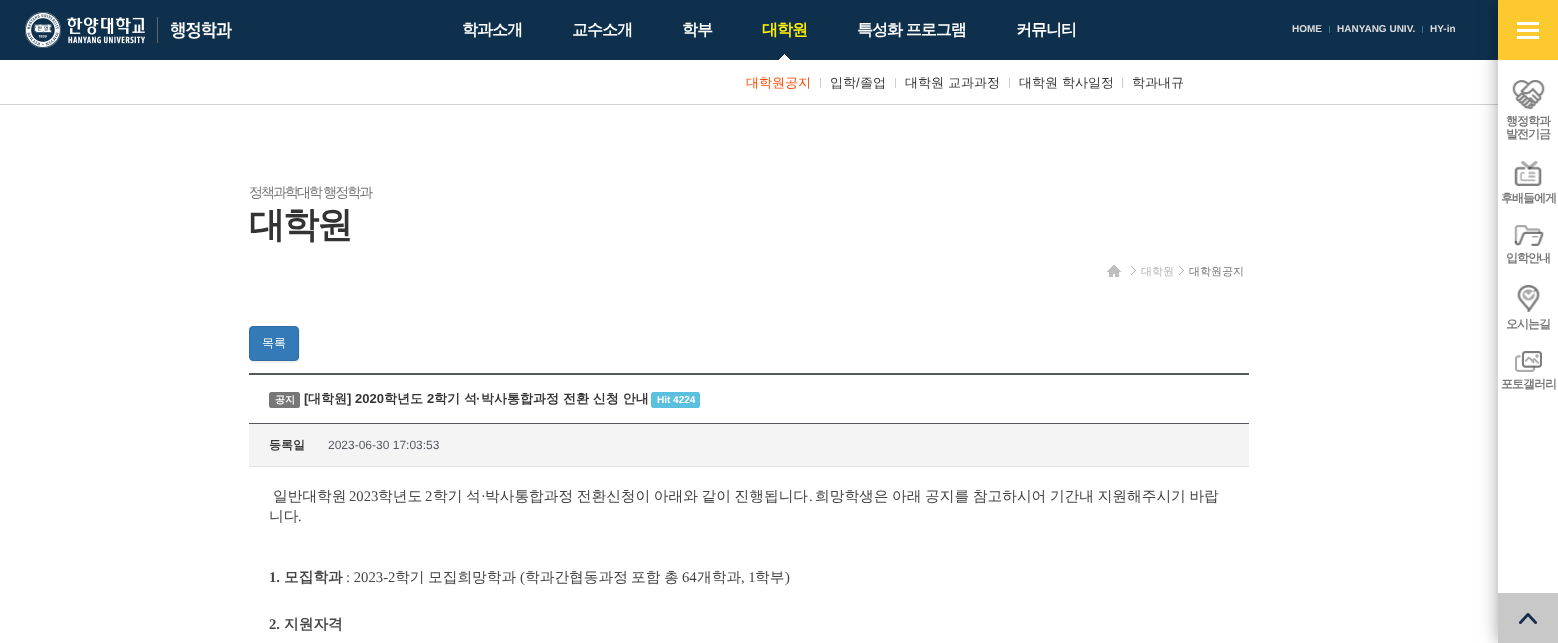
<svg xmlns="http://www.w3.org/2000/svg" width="1558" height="643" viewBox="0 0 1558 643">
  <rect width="100%" height="100%" fill="rgb(255,255,255)"/>
  <image x="0" y="0" width="1498" height="105" href="pic1.png"/>
  <rect x="157" y="17" width="1" height="26" fill="rgb(101,101,101)"/>
  <image x="25" y="12" width="120" height="36" href="pic2.png"/>
  <image x="170" y="22" width="62" height="17" href="pic3.png"/>
  <g font-family="WenQuanYi Zen Hei" font-size="16" font-weight="bold" letter-spacing="-1" fill="rgb(255,255,255)">
    <text x="462" y="35">학과소개</text>
    <text x="572" y="35">교수소개</text>
    <text x="682" y="35">학부</text>
  </g>
  <image x="779" y="54" width="11" height="6" href="pic4.png"/>
  <text x="762" y="35" font-family="WenQuanYi Zen Hei" font-size="16" font-weight="bold" letter-spacing="-1" fill="rgb(255,240,0)">대학원</text>
  <text x="746" y="87" font-family="WenQuanYi Zen Hei" font-size="13" font-weight="500" fill="rgb(255,74,0)">대학원공지</text>
  <rect x="820" y="78" width="1" height="10" fill="rgb(205,205,205)"/>
  <text x="830" y="87" font-family="WenQuanYi Zen Hei" font-size="13" font-weight="500" fill="rgb(51,51,51)">입학 졸업</text>
  <text x="856" y="87" font-family="Liberation Sans" font-size="13" fill="rgb(51,51,51)">/</text>
  <rect x="895" y="78" width="1" height="10" fill="rgb(205,205,205)"/>
  <text x="905" y="87" font-family="WenQuanYi Zen Hei" font-size="13" font-weight="500" fill="rgb(51,51,51)">대학원 교과과정</text>
  <rect x="1009" y="78" width="1" height="10" fill="rgb(205,205,205)"/>
  <text x="1019" y="87" font-family="WenQuanYi Zen Hei" font-size="13" font-weight="500" fill="rgb(51,51,51)">대학원 학사일정</text>
  <rect x="1122" y="78" width="1" height="10" fill="rgb(205,205,205)"/>
  <text x="1132" y="87" font-family="WenQuanYi Zen Hei" font-size="13" font-weight="500" fill="rgb(51,51,51)">학과내규</text>
  <g font-family="WenQuanYi Zen Hei" font-size="16" font-weight="bold" letter-spacing="-1" fill="rgb(255,255,255)">
    <text x="857" y="35">특성화 프로그램</text>
    <text x="1016" y="35">커뮤니티</text>
  </g>
  <text x="1292" y="32" font-family="Liberation Sans" font-size="10" font-weight="bold" fill="rgb(220,220,220)">HOME</text>
  <rect x="1329" y="26" width="1" height="7" fill="rgb(43,117,123)"/>
  <text x="1337" y="32" font-family="Liberation Sans" font-size="10" font-weight="bold" fill="rgb(220,220,220)">HANYANG UNIV.</text>
  <rect x="1422" y="26" width="1" height="7" fill="rgb(43,117,123)"/>
  <text x="1430" y="32" font-family="Liberation Sans" font-size="10" font-weight="bold" fill="rgb(220,220,220)">HY-in</text>
  <text x="249" y="197" font-family="WenQuanYi Zen Hei" font-size="14" font-weight="500" letter-spacing="-2" fill="rgb(119,119,119)">정책과학대학 행정학과</text>
  <text x="249" y="237" font-family="WenQuanYi Zen Hei" font-size="36" font-weight="bold" letter-spacing="-2" fill="rgb(51,51,51)">대학원</text>
  <image x="1107" y="265" width="14" height="12" href="pic5.png"/>
  <image x="1131" y="266" width="5" height="9" href="pic6.png"/>
  <text x="1141" y="275" font-family="WenQuanYi Zen Hei" font-size="11" font-weight="500" fill="rgb(182,182,182)">대학원</text>
  <image x="1179" y="266" width="5" height="9" href="pic6.png"/>
  <text x="1189" y="275" font-family="WenQuanYi Zen Hei" font-size="11" font-weight="500" fill="rgb(119,119,119)">대학원공지</text>
  <path d="M250 360C250 362 252 363 254 363H296C298 363 300 361 300 359V332C300 331 300 330 299 329V348C299 361 301 361 288 361H260C258 361 252 362 250 360Z" fill="rgb(240,240,240)"/>
  <rect x="249.5" y="326.5" width="49" height="34" rx="3.5" fill="rgb(51,122,183)" stroke="rgb(46,109,164)"/>
  <text x="262" y="347" font-family="WenQuanYi Zen Hei" font-size="12" font-weight="500" fill="rgb(255,255,255)">목록</text>
  <rect x="249" y="373" width="1000" height="2" fill="rgb(84,88,97)"/>
  <rect x="249" y="423" width="1000" height="1" fill="rgb(84,88,97)"/>
  <rect x="269" y="392" width="31" height="16" rx="2.5" fill="rgb(119,119,119)"/>
  <text x="275" y="403" font-family="WenQuanYi Zen Hei" font-size="10" font-weight="bold" fill="rgb(255,255,255)">공지</text>
  <text x="304" y="403" font-family="Liberation Sans" font-size="13" font-weight="bold" fill="rgb(51,51,51)">[</text>
  <text x="308" y="403" font-family="WenQuanYi Zen Hei" font-size="13" font-weight="bold" fill="rgb(51,51,51)">대학원</text>
  <text x="347" y="403" font-family="Liberation Sans" font-size="13" font-weight="bold" fill="rgb(51,51,51)">] 2020</text>
  <text x="384" y="403" font-family="WenQuanYi Zen Hei" font-size="13" font-weight="bold" fill="rgb(51,51,51)">학년도</text>
  <text x="427" y="403" font-family="Liberation Sans" font-size="13" font-weight="bold" fill="rgb(51,51,51)">2</text>
  <text x="434" y="403" font-family="WenQuanYi Zen Hei" font-size="13" font-weight="bold" fill="rgb(51,51,51)">학기 석</text>
  <text x="476" y="403" font-family="Liberation Sans" font-size="13" font-weight="bold" fill="rgb(51,51,51)">·</text>
  <text x="481" y="403" font-family="WenQuanYi Zen Hei" font-size="13" font-weight="bold" fill="rgb(51,51,51)">박사통합과정 전환 신청 안내</text>
  <rect x="651" y="392" width="49" height="16" rx="2.5" fill="rgb(91,192,222)"/>
  <text x="657" y="403" font-family="Liberation Sans" font-size="10" font-weight="bold" fill="rgb(255,255,255)">Hit 4224</text>
  <rect x="249" y="424" width="1000" height="42" fill="rgb(244,244,244)"/>
  <rect x="249" y="466" width="1000" height="1" fill="rgb(227,227,227)"/>
  <text x="269" y="449" font-family="WenQuanYi Zen Hei" font-size="12" font-weight="bold" fill="rgb(51,51,51)">등록일</text>
  <text x="328" y="449" font-family="Liberation Sans" font-size="12" fill="rgb(84,88,97)">2023-06-30 17:03:53</text>
  <text x="273" y="501" font-family="WenQuanYi Zen Hei" font-size="14.7" font-weight="500" fill="rgb(68,68,68)">일반대학원</text>
  <text x="349" y="501" font-family="Liberation Serif" font-size="14.7" fill="rgb(68,68,68)">2023</text>
  <text x="378" y="501" font-family="WenQuanYi Zen Hei" font-size="14.7" font-weight="500" fill="rgb(68,68,68)">학년도</text>
  <text x="425" y="501" font-family="Liberation Serif" font-size="14.7" fill="rgb(68,68,68)">2</text>
  <text x="433" y="501" word-spacing="-0.75" font-family="WenQuanYi Zen Hei" font-size="14.7" font-weight="500" fill="rgb(68,68,68)">학기 석</text>
  <text x="481" y="501" font-family="Liberation Serif" font-size="14.7" fill="rgb(68,68,68)">·</text>
  <g font-family="WenQuanYi Zen Hei" font-size="14.7" font-weight="500" fill="rgb(68,68,68)">
    <text x="485" y="501" word-spacing="-0.75">박사통합과정 전환신청이 아래와 같이 진행됩니다</text>
    <text x="815" y="501" word-spacing="-0.75">희망학생은 아래 공지를 참고하시어 기간내 지원해주시기 바랍</text>
  </g>
  <text x="809" y="501" font-family="Liberation Serif" font-size="14.7" fill="rgb(68,68,68)">.</text>
  <text x="269" y="521" font-family="WenQuanYi Zen Hei" font-size="14.7" font-weight="500" fill="rgb(68,68,68)">니다</text>
  <text x="298" y="521" font-family="Liberation Serif" font-size="14.7" fill="rgb(68,68,68)">.</text>
  <text x="269" y="582" font-family="Liberation Serif" font-size="14.7" font-weight="bold" fill="rgb(68,68,68)">1.</text>
  <text x="284" y="582" font-family="WenQuanYi Zen Hei" font-size="14.7" font-weight="bold" fill="rgb(68,68,68)">모집학과</text>
  <text x="346" y="582" font-family="Liberation Serif" font-size="14.7" fill="rgb(68,68,68)">: 2023-2</text>
  <g font-family="WenQuanYi Zen Hei" font-size="14.7" font-weight="500" fill="rgb(68,68,68)">
    <text x="395" y="582">학기</text>
    <text x="428" y="582">모집희망학과</text>
  </g>
  <text x="520" y="582" font-family="Liberation Serif" font-size="14.7" fill="rgb(68,68,68)">(</text>
  <g font-family="WenQuanYi Zen Hei" font-size="14.7" font-weight="500" fill="rgb(68,68,68)">
    <text x="525" y="582">학과간협동과정</text>
    <text x="631" y="582">포함</text>
    <text x="664" y="582">총</text>
  </g>
  <text x="682" y="582" font-family="Liberation Serif" font-size="14.7" fill="rgb(68,68,68)">64</text>
  <text x="697" y="582" font-family="WenQuanYi Zen Hei" font-size="14.7" font-weight="500" fill="rgb(68,68,68)">개학과</text>
  <text x="741" y="582" font-family="Liberation Serif" font-size="14.7" fill="rgb(68,68,68)">, 1</text>
  <text x="755" y="582" font-family="WenQuanYi Zen Hei" font-size="14.7" font-weight="500" fill="rgb(68,68,68)">학부</text>
  <text x="785" y="582" font-family="Liberation Serif" font-size="14.7" fill="rgb(68,68,68)">)</text>
  <text x="269" y="629" font-family="Liberation Serif" font-size="14.7" font-weight="bold" fill="rgb(68,68,68)">2.</text>
  <text x="284" y="629" font-family="WenQuanYi Zen Hei" font-size="14.7" font-weight="bold" fill="rgb(68,68,68)">지원자격</text>
  <rect x="1498" y="0" width="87" height="643" fill="rgba(0,0,0,0.36)" filter="blur(9px)"/>
  <rect x="1498" y="60" width="60" height="533" fill="rgb(255,255,255)"/>
  <rect x="1498" y="0" width="60" height="60" fill="rgb(252,201,47)"/>
  <image x="1517" y="22" width="22" height="17" href="pic7.png"/>
  <image x="1512" y="80" width="33" height="29" href="pic8.png"/>
  <g font-family="WenQuanYi Zen Hei" font-size="12" font-weight="bold" letter-spacing="-1" fill="rgb(119,119,119)">
    <text>
      <tspan x="1506" y="125">행정학과</tspan>
      <tspan x="1506" y="138">발전기금</tspan>
    </text>
  </g>
  <image x="1514" y="161" width="28" height="25" href="pic9.png"/>
  <text x="1501" y="202" font-family="WenQuanYi Zen Hei" font-size="12" font-weight="bold" letter-spacing="-1" fill="rgb(119,119,119)">후배들에게</text>
  <image x="1514" y="225" width="30" height="21" href="pic10.png"/>
  <text x="1506" y="262" font-family="WenQuanYi Zen Hei" font-size="12" font-weight="bold" letter-spacing="-1" fill="rgb(119,119,119)">입학안내</text>
  <image x="1517" y="285" width="23" height="27" href="pic11.png"/>
  <text x="1506" y="328" font-family="WenQuanYi Zen Hei" font-size="12" font-weight="bold" letter-spacing="-1" fill="rgb(119,119,119)">오시는길</text>
  <image x="1515" y="351" width="27" height="21" href="pic12.png"/>
  <text x="1501" y="388" font-family="WenQuanYi Zen Hei" font-size="12" font-weight="bold" letter-spacing="-1" fill="rgb(119,119,119)">포토갤러리</text>
  <rect x="1498" y="593" width="60" height="50" fill="rgb(200,200,200)"/>
  <image x="1519" y="613" width="18" height="11" href="pic13.png"/>
</svg>
